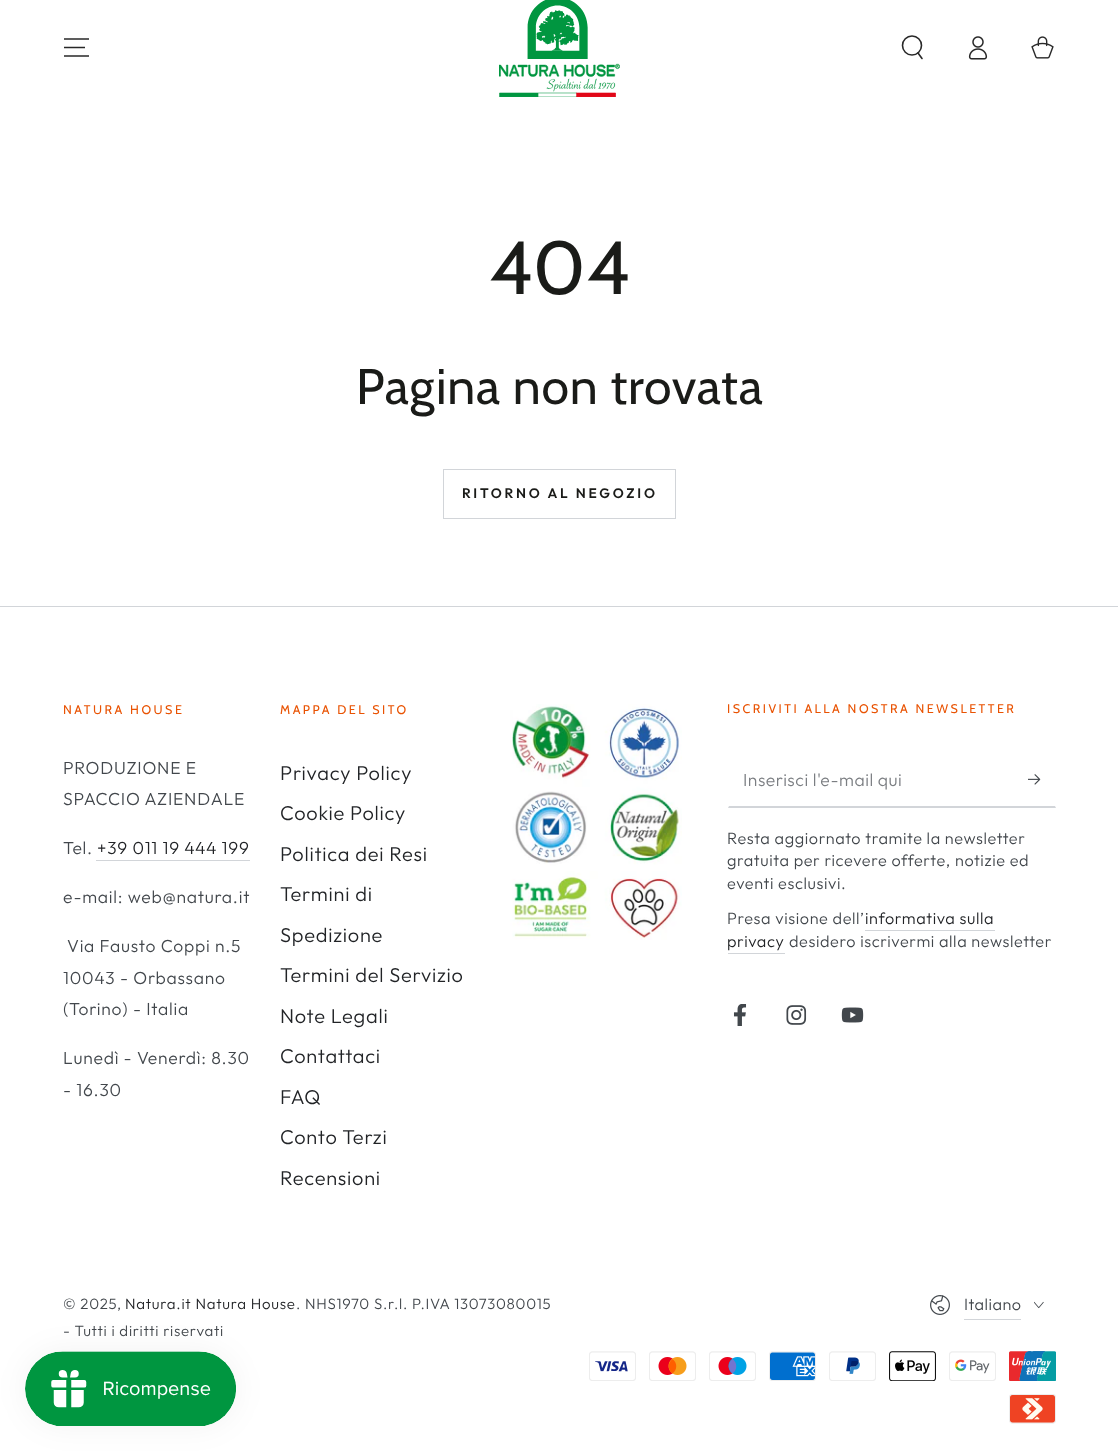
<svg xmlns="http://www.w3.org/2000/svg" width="1118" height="1451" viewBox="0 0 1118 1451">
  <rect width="100%" height="100%" fill="rgb(255,255,255)"/>
  <path d="M64 56H89M64 47.5H85M64 39H89" fill="none" stroke="rgb(40,40,40)" stroke-width="1.4"/>
  <image x="499" y="0" width="121" height="97" href="pic1.png"/>
  <circle cx="912" cy="45.5" r="9.5" fill="none" stroke="rgb(40,40,40)" stroke-width="1.6"/>
  <path d="M918 53L922 58.5" fill="none" stroke="rgb(40,40,40)" stroke-width="1.6" stroke-linecap="round"/>
  <image x="968" y="36" width="20" height="24" href="pic2.png"/>
  <image x="1031" y="36" width="23" height="23" href="pic3.png"/>
  <text x="489" y="294" font-family="Cabin" font-size="75" letter-spacing="0.75" fill="rgb(26,27,24)">404</text>
  <text x="356" y="404" font-family="Cabin" font-size="50" letter-spacing="0.75" fill="rgb(26,27,24)">Pagina non trovata</text>
  <rect x="443.5" y="469.5" width="232" height="49" fill="none" stroke="rgb(210,213,217)"/>
  <text x="462" y="498" font-family="Outfit" font-size="13.75" font-weight="600" letter-spacing="2.75" fill="rgb(26,27,24)">RITORNO AL NEGOZIO</text>
  <rect x="0" y="606" width="1118" height="1" fill="rgb(210,213,217)"/>
  <text x="63" y="714" font-family="Cabin" font-size="12.5" letter-spacing="2.5" fill="rgb(233,83,3)">NATURA HOUSE</text>
  <g font-family="Outfit" font-size="17.5" font-weight="300" letter-spacing="0.75" fill="rgb(66,71,76)">
    <text>
      <tspan x="63" y="774">PRODUZIONE E</tspan>
      <tspan x="63" y="805">SPACCIO AZIENDALE</tspan>
    </text>
    <text x="63" y="854">Tel.</text>
  </g>
  <text x="97" y="854" font-family="Outfit" font-size="17.5" font-weight="300" letter-spacing="0.75" fill="rgb(33,35,38)">+39 011 19 444 199</text>
  <rect x="96" y="860" width="154" height="1" fill="rgb(210,213,217)"/>
  <g font-family="Outfit" font-size="17.5" font-weight="300" letter-spacing="0.75" fill="rgb(66,71,76)">
    <text x="63" y="903">e-mail: web@natura.it</text>
    <text x="67" y="952">Via Fausto Coppi n.5</text>
    <text>
      <tspan x="63" y="984">10043 - Orbassano</tspan>
      <tspan x="63" y="1015">(Torino) - Italia</tspan>
    </text>
    <text>
      <tspan x="63" y="1064">Lunedì - Venerdì: 8.30</tspan>
      <tspan x="63" y="1096">- 16.30</tspan>
    </text>
  </g>
  <text x="280" y="714" font-family="Cabin" font-size="12.5" letter-spacing="2.5" fill="rgb(233,83,3)">MAPPA DEL SITO</text>
  <g font-family="Outfit" font-size="20" font-weight="300" letter-spacing="0.75" fill="rgb(33,35,38)">
    <text x="280" y="780">Privacy Policy</text>
    <text x="280" y="820">Cookie Policy</text>
    <text x="280" y="861">Politica dei Resi</text>
    <text x="280" y="901">Termini di</text>
    <text x="280" y="942">Spedizione</text>
    <text x="280" y="982">Termini del Servizio</text>
    <text x="280" y="1023">Note Legali</text>
    <text x="280" y="1063">Contattaci</text>
    <text x="280" y="1104">FAQ</text>
    <text x="280" y="1144">Conto Terzi</text>
    <text x="280" y="1185">Recensioni</text>
  </g>
  <image x="510" y="704" width="172" height="236" href="pic4.png"/>
  <text x="727" y="713" font-family="Cabin" font-size="12.5" letter-spacing="2.5" fill="rgb(233,83,3)">ISCRIVITI ALLA NOSTRA NEWSLETTER</text>
  <path d="M1056 808H728L729 806H1055Z" fill="rgb(210,213,217)"/>
  <text x="743" y="786" font-family="Outfit" font-size="17.5" font-weight="300" letter-spacing="0.5" fill="rgb(123,126,130)">Inserisci l'e-mail qui</text>
  <image x="1028" y="774" width="13" height="11" href="pic5.png"/>
  <g font-family="Outfit" font-size="16.25" font-weight="300" letter-spacing="0.6" fill="rgb(66,71,76)">
    <text>
      <tspan x="727" y="844">Resta aggiornato tramite la newsletter</tspan>
      <tspan x="727" y="866">gratuita per ricevere offerte, notizie ed</tspan>
      <tspan x="727" y="889">eventi esclusivi.</tspan>
    </text>
    <text x="727" y="924">Presa visione dell’</text>
  </g>
  <text x="865" y="924" font-family="Outfit" font-size="16.25" font-weight="300" letter-spacing="0.6" fill="rgb(33,35,38)">informativa sulla</text>
  <rect x="865" y="930" width="130" height="1" fill="rgb(210,213,217)"/>
  <text x="727" y="947" font-family="Outfit" font-size="16.25" font-weight="300" letter-spacing="0.6" fill="rgb(33,35,38)">privacy</text>
  <rect x="728" y="953" width="57" height="1" fill="rgb(210,213,217)"/>
  <text x="789" y="947" font-family="Outfit" font-size="16.25" font-weight="300" letter-spacing="0.6" fill="rgb(66,71,76)">desidero iscrivermi alla newsletter</text>
  <image x="733" y="1004" width="14" height="22" href="pic6.png"/>
  <image x="786" y="1005" width="21" height="20" href="pic7.png"/>
  <image x="841" y="1007" width="23" height="16" href="pic8.png"/>
  <text x="63" y="1309" font-family="Outfit" font-size="15" font-weight="300" letter-spacing="0.75" fill="rgb(66,71,76)">© 2025,</text>
  <text x="125" y="1309" font-family="Outfit" font-size="15" font-weight="300" letter-spacing="0.75" fill="rgb(33,35,38)">Natura.it Natura House</text>
  <g font-family="Outfit" font-size="15" font-weight="300" letter-spacing="0.75" fill="rgb(66,71,76)">
    <text x="296" y="1309">. NHS1970 S.r.l. P.IVA 13073080015</text>
    <text x="63" y="1336">- Tutti i diritti riservati</text>
  </g>
  <image x="930" y="1295" width="20" height="20" href="pic9.png"/>
  <rect x="964" y="1319" width="57" height="1" fill="rgb(210,213,217)"/>
  <text x="964" y="1310" font-family="Outfit" font-size="16.25" font-weight="300" letter-spacing="0.5" fill="rgb(66,71,76)">Italiano</text>
  <image x="1034" y="1301" width="10" height="8" href="pic10.png"/>
  <image x="589" y="1351" width="47" height="30" href="pic11.png"/>
  <image x="649" y="1351" width="47" height="30" href="pic12.png"/>
  <image x="709" y="1351" width="47" height="30" href="pic13.png"/>
  <image x="769" y="1351" width="47" height="30" href="pic14.png"/>
  <image x="829" y="1351" width="47" height="30" href="pic15.png"/>
  <image x="889" y="1351" width="47" height="30" href="pic16.png"/>
  <image x="949" y="1351" width="47" height="30" href="pic17.png"/>
  <image x="1009" y="1351" width="47" height="30" href="pic18.png"/>
  <image x="1009" y="1394" width="47" height="30" href="pic19.png"/>
  <rect x="25" y="1351" width="211" height="75" rx="37.5" fill="rgba(0,0,0,0.05)" filter="blur(15.5px)"/>
  <image x="25" y="1351" width="211" height="75" href="pic20.png"/>
</svg>
